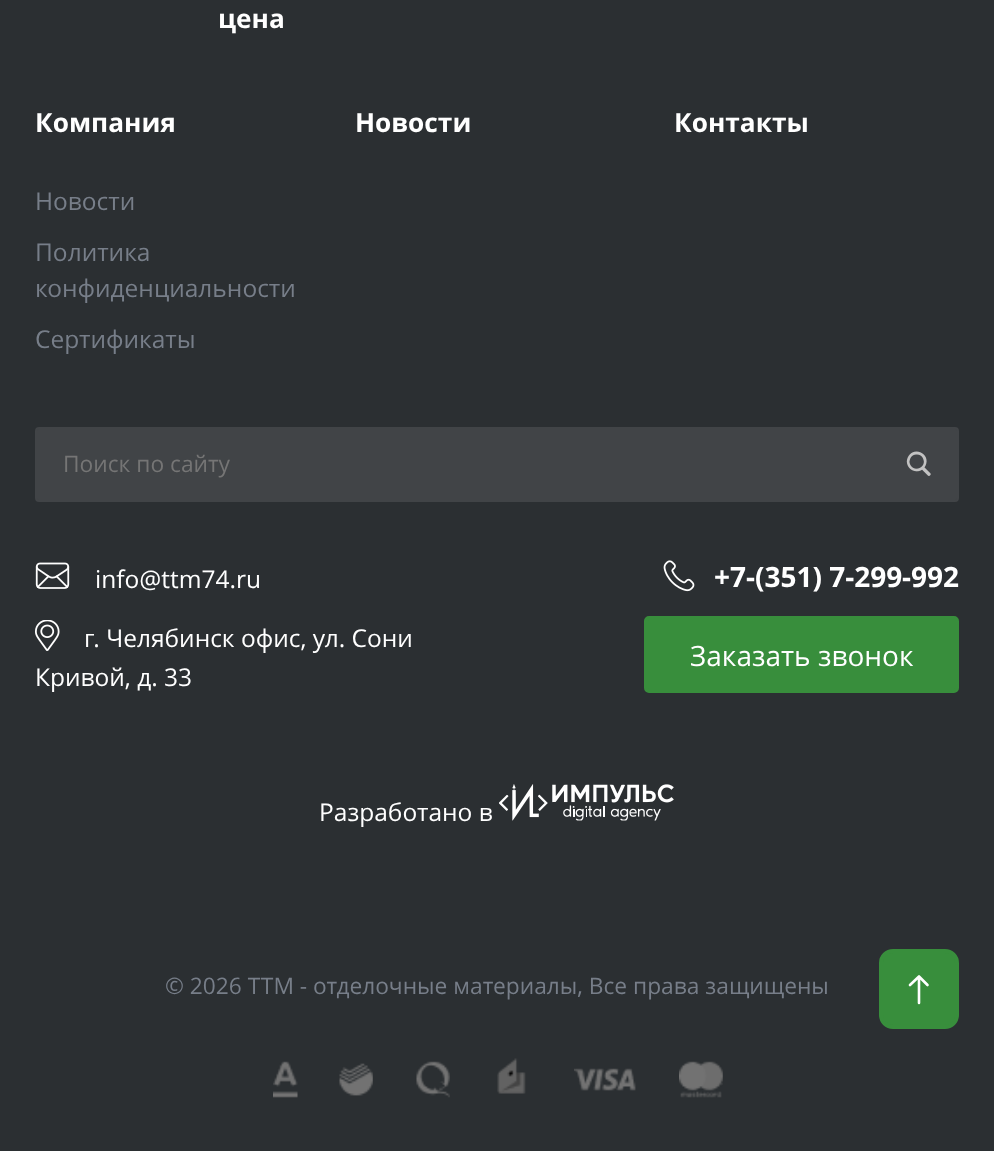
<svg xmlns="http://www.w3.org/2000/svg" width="994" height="1151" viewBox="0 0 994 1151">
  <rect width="100%" height="100%" fill="rgb(43,47,50)"/>
  <g font-family="Open Sans" font-size="26.25" font-weight="bold" fill="rgb(255,255,255)">
    <text x="218" y="28">цена</text>
    <text x="35" y="132">Компания</text>
  </g>
  <g font-family="Open Sans" font-size="24.5" fill="rgb(119,126,137)">
    <text x="35" y="210">Новости</text>
    <text>
      <tspan x="35" y="261">Политика</tspan>
      <tspan x="35" y="297">конфиденциальности</tspan>
    </text>
    <text x="35" y="348">Сертификаты</text>
  </g>
  <g font-family="Open Sans" font-size="26.25" font-weight="bold" fill="rgb(255,255,255)">
    <text x="355" y="132">Новости</text>
    <text x="674" y="132">Контакты</text>
  </g>
  <rect x="36" y="428" width="922" height="73" rx="3" fill="rgb(65,68,71)" stroke="rgb(65,68,71)" stroke-width="2"/>
  <text x="63" y="472" font-family="Open Sans" font-size="22.75" fill="rgb(117,117,117)">Поиск по сайту</text>
  <image x="906" y="451" width="25" height="25" href="pic1.png"/>
  <image x="35" y="562" width="35" height="27" href="pic2.png"/>
  <text x="95" y="588" font-family="Open Sans" font-size="24.5" fill="rgb(255,255,255)">info@ttm74.ru</text>
  <image x="663" y="560" width="32" height="32" href="pic3.png"/>
  <text x="714" y="587" font-family="Open Sans" font-size="28" font-weight="bold" fill="rgb(255,255,255)">+7-(351) 7-299-992</text>
  <image x="35" y="620" width="25" height="31" href="pic4.png"/>
  <g font-family="Open Sans" font-size="24.5" fill="rgb(255,255,255)">
    <text x="84" y="647">г. Челябинск офис, ул. Сони</text>
    <text x="35" y="686">Кривой, д. 33</text>
  </g>
  <rect x="646" y="618" width="311" height="73" rx="3" fill="rgb(56,142,60)" stroke="rgb(56,142,60)" stroke-width="4"/>
  <text x="690" y="666" font-family="Open Sans" font-size="28" fill="rgb(255,255,255)">Заказать звонок</text>
  <text x="319" y="821" font-family="Open Sans" font-size="24.5" fill="rgb(255,255,255)">Разработано в</text>
  <image x="499" y="784" width="175" height="37" href="pic5.png"/>
  <text x="165" y="994" font-family="Open Sans" font-size="22.75" fill="rgb(119,126,137)">© 2026 ТТМ - отделочные материалы, Все права защищены</text>
  <image x="273" y="1061" width="25" height="37" href="pic6.png"/>
  <image x="339" y="1063" width="34" height="33" href="pic7.png"/>
  <image x="416" y="1061" width="34" height="37" href="pic8.png"/>
  <image x="497" y="1058" width="29" height="36" href="pic9.png"/>
  <image x="574" y="1068" width="62" height="23" href="pic10.png"/>
  <image x="679" y="1061" width="44" height="37" href="pic11.png"/>
  <rect x="881" y="951" width="76" height="76" rx="12" fill="rgb(56,142,60)" stroke="rgb(56,142,60)" stroke-width="4"/>
  <path d="M927.5 985L919 976.5L910 985M919 1003V976.5" fill="none" stroke="rgb(255,255,255)" stroke-width="2.6" stroke-linecap="round" stroke-linejoin="round"/>
</svg>
